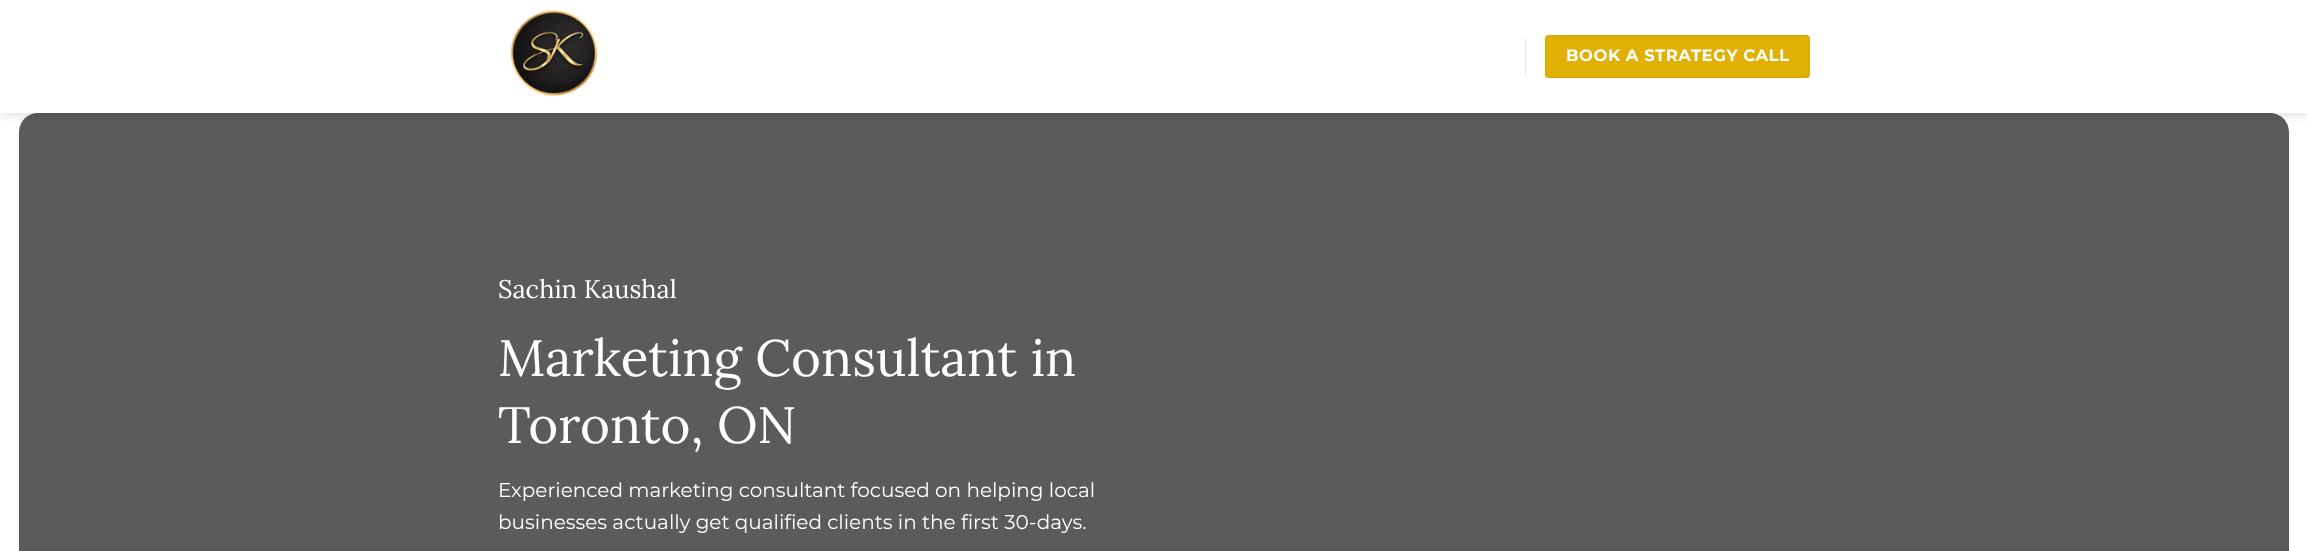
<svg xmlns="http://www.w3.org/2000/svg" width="2307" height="551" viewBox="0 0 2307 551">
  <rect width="100%" height="100%" fill="rgb(255,255,255)"/>
  <rect x="19" y="113" width="2270" height="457" rx="19" fill="rgb(91,91,91)"/>
  <rect x="1" y="1" width="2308" height="113" fill="rgba(0,0,0,0.15)" filter="blur(6px)"/>
  <rect x="0" y="0" width="2307" height="113" fill="rgb(255,255,255)"/>
  <image x="510" y="10" width="88" height="86" href="pic1.png"/>
  <rect x="1525" y="38" width="1" height="37" fill="rgb(230,230,230)"/>
  <rect x="1545" y="35" width="265" height="43" rx="4" fill="rgb(224,177,4)"/>
  <rect x="1545.5" y="35.5" width="264" height="42" fill="none" stroke="rgba(0,0,0,0.05)"/>
  <text x="1566" y="61" font-family="Montserrat" font-size="16.5" font-weight="bold" letter-spacing="0.5" fill="rgb(255,255,255)">BOOK A STRATEGY CALL</text>
  <text x="498" y="298" font-family="Lora" font-size="25.5" fill="rgb(255,255,255)">Sachin Kaushal</text>
  <g font-family="Lora" font-size="51.25" fill="rgb(255,255,255)">
    <text>
      <tspan x="498" y="376">Marketing Consultant in</tspan>
      <tspan x="498" y="443">Toronto, ON</tspan>
    </text>
  </g>
  <g font-family="Montserrat" font-size="20" fill="rgb(255,255,255)">
    <text>
      <tspan x="498" y="497">Experienced marketing consultant focused on helping local</tspan>
      <tspan x="498" y="529">businesses actually get qualified clients in the first 30-days.</tspan>
    </text>
  </g>
</svg>
